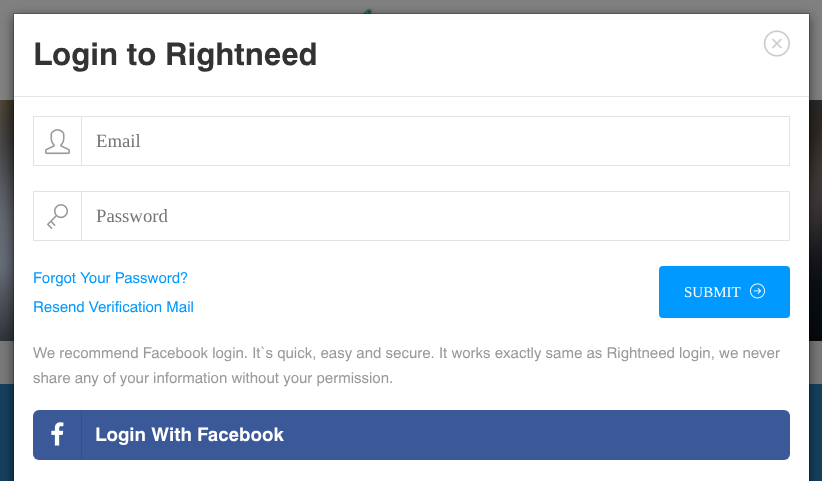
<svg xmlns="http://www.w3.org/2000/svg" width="822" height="481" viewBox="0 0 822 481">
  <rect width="100%" height="100%" fill="rgb(120,120,120)"/>
  <rect x="0" y="0" width="822" height="100" fill="rgb(128,128,128)"/>
  <image x="304" y="8" width="212" height="6" href="pic1.png"/>
  <image x="0" y="100" width="822" height="241" href="pic7.png"/>
  <rect x="0" y="384" width="822" height="97" fill="rgb(21,64,93)"/>
  <rect x="13" y="16" width="797" height="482" fill="rgba(0,0,0,0.5)" filter="blur(5.5px)"/>
  <rect x="14" y="14" width="795" height="467" fill="rgb(255,255,255)"/>
  <rect x="13.5" y="13.5" width="796" height="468" fill="none" stroke="rgba(0,0,0,0.2)"/>
  <rect x="14" y="96" width="795" height="1" fill="rgb(229,229,229)"/>
  <text x="33" y="65" font-family="'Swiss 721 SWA'" font-size="31.25" font-weight="bold" fill="rgb(51,51,51)">Login to Rightneed</text>
  <image x="763" y="30" width="27" height="27" href="pic2.png"/>
  <rect x="33.5" y="116.5" width="756" height="49" fill="none" stroke="rgb(227,227,227)"/>
  <rect x="81" y="116" width="1" height="50" fill="rgb(227,227,227)"/>
  <image x="45" y="129" width="25" height="26" href="pic3.png"/>
  <text x="96" y="147" font-family="Liberation Serif" font-size="18.75" fill="rgb(117,117,117)">Email</text>
  <rect x="33.5" y="191.5" width="756" height="49" fill="none" stroke="rgb(227,227,227)"/>
  <rect x="81" y="191" width="1" height="50" fill="rgb(227,227,227)"/>
  <image x="47" y="204" width="21" height="25" href="pic4.png"/>
  <text x="96" y="222" font-family="Liberation Serif" font-size="18.75" fill="rgb(117,117,117)">Password</text>
  <g font-family="'Swiss 721 SWA'" font-size="15" fill="rgb(0,153,255)">
    <text>
      <tspan x="33" y="283">Forgot Your Password?</tspan>
      <tspan x="33" y="312">Resend Verification Mail</tspan>
    </text>
  </g>
  <rect x="659" y="266" width="131" height="52" rx="4" fill="rgb(0,153,255)"/>
  <text x="684" y="297" font-family="Liberation Serif" font-size="15" fill="rgb(255,255,255)">SUBMIT</text>
  <image x="750" y="283" width="15" height="16" href="pic5.png"/>
  <g font-family="'Swiss 721 SWA'" font-size="15" fill="rgb(153,153,153)">
    <text>
      <tspan x="33" y="358">We recommend Facebook login. It`s quick, easy and secure. It works exactly same as Rightneed login, we never</tspan>
      <tspan x="33" y="383">share any of your information without your permission.</tspan>
    </text>
  </g>
  <rect x="33" y="410" width="757" height="50" rx="6" fill="rgb(59,89,152)"/>
  <rect x="81" y="410" width="1" height="50" fill="rgb(53,80,137)"/>
  <image x="51" y="422" width="13" height="24" href="pic6.png"/>
  <text x="95" y="441" font-family="'Swiss 721 SWA'" font-size="18.75" font-weight="bold" fill="rgb(255,255,255)">Login With Facebook</text>
</svg>
